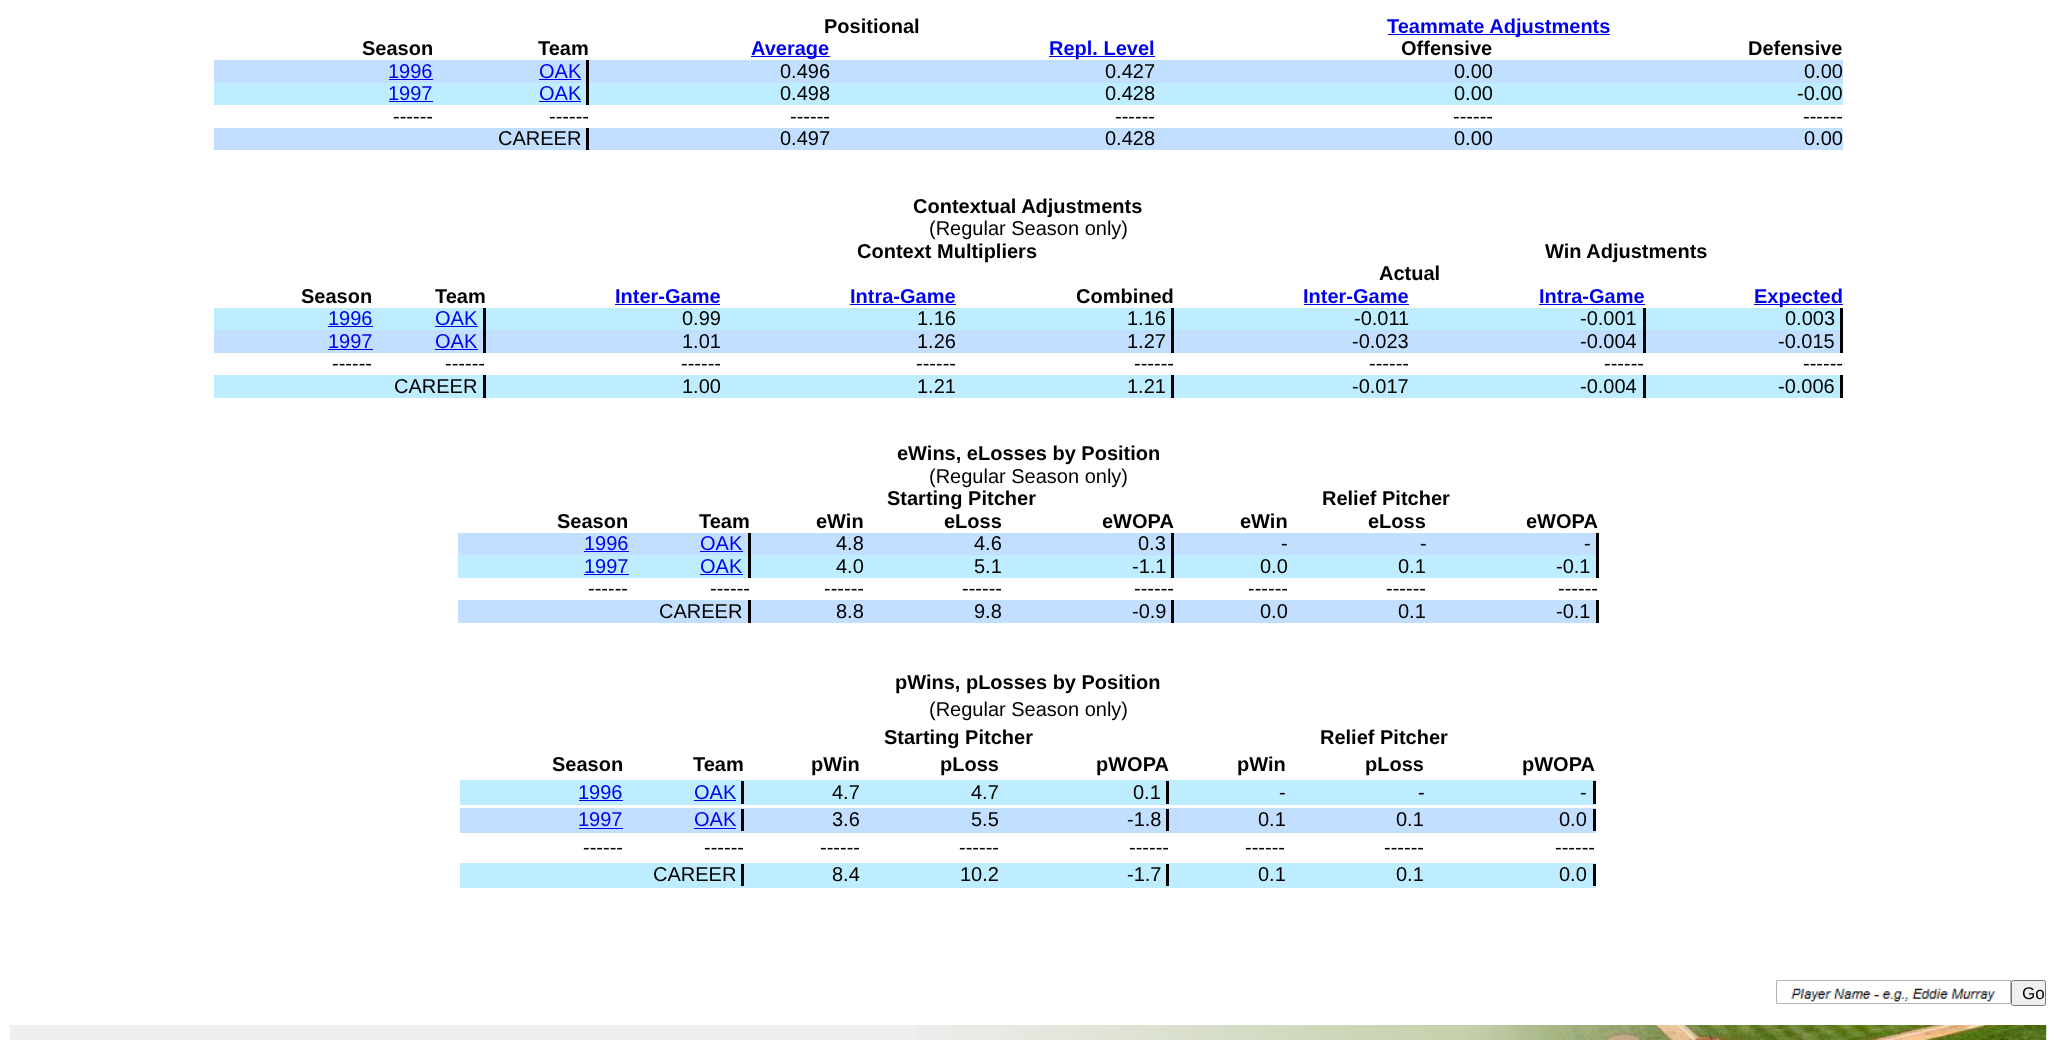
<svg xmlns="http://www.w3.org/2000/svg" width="2056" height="1040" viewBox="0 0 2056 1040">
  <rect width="100%" height="100%" fill="rgb(255,255,255)"/>
  <text x="824" y="33" font-family="Liberation Sans" font-size="20" font-weight="bold" fill="rgb(0,0,0)">Positional</text>
  <rect x="1388" y="34" width="222" height="1" fill="rgb(0,0,238)"/>
  <text x="1387" y="33" font-family="Liberation Sans" font-size="20" font-weight="bold" fill="rgb(0,0,238)">Teammate Adjustments</text>
  <g font-family="Liberation Sans" font-size="20" font-weight="bold" fill="rgb(0,0,0)">
    <text x="362" y="55">Season</text>
    <text x="538" y="55">Team</text>
  </g>
  <rect x="751" y="56" width="79" height="1" fill="rgb(0,0,238)"/>
  <text x="751" y="55" font-family="Liberation Sans" font-size="20" font-weight="bold" fill="rgb(0,0,238)">Average</text>
  <rect x="1049" y="56" width="106" height="1" fill="rgb(0,0,238)"/>
  <text x="1049" y="55" font-family="Liberation Sans" font-size="20" font-weight="bold" fill="rgb(0,0,238)">Repl. Level</text>
  <g font-family="Liberation Sans" font-size="20" font-weight="bold" fill="rgb(0,0,0)">
    <text x="1401" y="55">Offensive</text>
    <text x="1748" y="55">Defensive</text>
  </g>
  <rect x="214" y="60" width="1629" height="23" fill="rgb(194,223,255)"/>
  <text x="388" y="78" font-family="Liberation Sans" font-size="20" fill="rgb(0,0,238)">1996</text>
  <rect x="389" y="79" width="44" height="1" fill="rgb(0,0,238)"/>
  <rect x="586" y="60" width="3" height="23" fill="rgb(0,0,0)"/>
  <text x="539" y="78" font-family="Liberation Sans" font-size="20" fill="rgb(0,0,238)">OAK</text>
  <rect x="539" y="79" width="42" height="1" fill="rgb(0,0,238)"/>
  <g font-family="Liberation Sans" font-size="20" fill="rgb(0,0,0)">
    <text x="780" y="78">0.496</text>
    <text x="1105" y="78">0.427</text>
    <text x="1454" y="78">0.00</text>
    <text x="1804" y="78">0.00</text>
  </g>
  <rect x="214" y="83" width="1629" height="22" fill="rgb(189,237,255)"/>
  <text x="388" y="100" font-family="Liberation Sans" font-size="20" fill="rgb(0,0,238)">1997</text>
  <rect x="389" y="101" width="44" height="1" fill="rgb(0,0,238)"/>
  <rect x="586" y="83" width="3" height="22" fill="rgb(0,0,0)"/>
  <text x="539" y="100" font-family="Liberation Sans" font-size="20" fill="rgb(0,0,238)">OAK</text>
  <rect x="539" y="101" width="42" height="1" fill="rgb(0,0,238)"/>
  <g font-family="Liberation Sans" font-size="20" fill="rgb(0,0,0)">
    <text x="780" y="100">0.498</text>
    <text x="1105" y="100">0.428</text>
    <text x="1454" y="100">0.00</text>
    <text x="1797" y="100">-0.00</text>
    <text x="393" y="123">------</text>
    <text x="549" y="123">------</text>
    <text x="790" y="123">------</text>
    <text x="1115" y="123">------</text>
    <text x="1453" y="123">------</text>
    <text x="1803" y="123">------</text>
  </g>
  <rect x="214" y="128" width="1629" height="22" fill="rgb(194,223,255)"/>
  <rect x="586" y="128" width="3" height="22" fill="rgb(0,0,0)"/>
  <g font-family="Liberation Sans" font-size="20" fill="rgb(0,0,0)">
    <text x="498" y="145">CAREER</text>
    <text x="780" y="145">0.497</text>
    <text x="1105" y="145">0.428</text>
    <text x="1454" y="145">0.00</text>
    <text x="1804" y="145">0.00</text>
  </g>
  <text x="913" y="213" font-family="Liberation Sans" font-size="20" font-weight="bold" fill="rgb(0,0,0)">Contextual Adjustments</text>
  <text x="929" y="235" font-family="Liberation Sans" font-size="20" fill="rgb(0,0,0)">(Regular Season only)</text>
  <g font-family="Liberation Sans" font-size="20" font-weight="bold" fill="rgb(0,0,0)">
    <text x="857" y="258">Context Multipliers</text>
    <text x="1545" y="258">Win Adjustments</text>
    <text x="1379" y="280">Actual</text>
    <text x="301" y="303">Season</text>
    <text x="435" y="303">Team</text>
  </g>
  <text x="615" y="303" font-family="Liberation Sans" font-size="20" font-weight="bold" fill="rgb(0,0,238)">Inter-Game</text>
  <rect x="615" y="304" width="105" height="1" fill="rgb(0,0,238)"/>
  <text x="850" y="303" font-family="Liberation Sans" font-size="20" font-weight="bold" fill="rgb(0,0,238)">Intra-Game</text>
  <rect x="850" y="304" width="106" height="1" fill="rgb(0,0,238)"/>
  <text x="1076" y="303" font-family="Liberation Sans" font-size="20" font-weight="bold" fill="rgb(0,0,0)">Combined</text>
  <text x="1303" y="303" font-family="Liberation Sans" font-size="20" font-weight="bold" fill="rgb(0,0,238)">Inter-Game</text>
  <rect x="1304" y="304" width="105" height="1" fill="rgb(0,0,238)"/>
  <text x="1539" y="303" font-family="Liberation Sans" font-size="20" font-weight="bold" fill="rgb(0,0,238)">Intra-Game</text>
  <rect x="1539" y="304" width="106" height="1" fill="rgb(0,0,238)"/>
  <rect x="1754" y="304" width="89" height="1" fill="rgb(0,0,238)"/>
  <text x="1754" y="303" font-family="Liberation Sans" font-size="20" font-weight="bold" fill="rgb(0,0,238)">Expected</text>
  <rect x="214" y="308" width="1626" height="22" fill="rgb(189,237,255)"/>
  <text x="328" y="325" font-family="Liberation Sans" font-size="20" fill="rgb(0,0,238)">1996</text>
  <rect x="328" y="326" width="45" height="1" fill="rgb(0,0,238)"/>
  <rect x="483" y="308" width="3" height="22" fill="rgb(0,0,0)"/>
  <text x="435" y="325" font-family="Liberation Sans" font-size="20" fill="rgb(0,0,238)">OAK</text>
  <rect x="435" y="326" width="43" height="1" fill="rgb(0,0,238)"/>
  <g font-family="Liberation Sans" font-size="20" fill="rgb(0,0,0)">
    <text x="682" y="325">0.99</text>
    <text x="917" y="325">1.16</text>
  </g>
  <rect x="1171" y="308" width="3" height="22" fill="rgb(0,0,0)"/>
  <g font-family="Liberation Sans" font-size="20" fill="rgb(0,0,0)">
    <text x="1127" y="325">1.16</text>
    <text x="1354" y="325">-0.011</text>
  </g>
  <rect x="1643" y="308" width="3" height="22" fill="rgb(0,0,0)"/>
  <text x="1580" y="325" font-family="Liberation Sans" font-size="20" fill="rgb(0,0,0)">-0.001</text>
  <rect x="1840" y="308" width="3" height="45" fill="rgb(0,0,0)"/>
  <text x="1785" y="325" font-family="Liberation Sans" font-size="20" fill="rgb(0,0,0)">0.003</text>
  <rect x="214" y="330" width="1626" height="23" fill="rgb(194,223,255)"/>
  <text x="328" y="348" font-family="Liberation Sans" font-size="20" fill="rgb(0,0,238)">1997</text>
  <rect x="328" y="349" width="45" height="1" fill="rgb(0,0,238)"/>
  <rect x="483" y="330" width="3" height="23" fill="rgb(0,0,0)"/>
  <text x="435" y="348" font-family="Liberation Sans" font-size="20" fill="rgb(0,0,238)">OAK</text>
  <rect x="435" y="349" width="43" height="1" fill="rgb(0,0,238)"/>
  <g font-family="Liberation Sans" font-size="20" fill="rgb(0,0,0)">
    <text x="682" y="348">1.01</text>
    <text x="917" y="348">1.26</text>
  </g>
  <rect x="1171" y="330" width="3" height="23" fill="rgb(0,0,0)"/>
  <g font-family="Liberation Sans" font-size="20" fill="rgb(0,0,0)">
    <text x="1127" y="348">1.27</text>
    <text x="1352" y="348">-0.023</text>
  </g>
  <rect x="1643" y="330" width="3" height="23" fill="rgb(0,0,0)"/>
  <g font-family="Liberation Sans" font-size="20" fill="rgb(0,0,0)">
    <text x="1580" y="348">-0.004</text>
    <text x="1778" y="348">-0.015</text>
    <text x="332" y="370">------</text>
    <text x="445" y="370">------</text>
    <text x="681" y="370">------</text>
    <text x="916" y="370">------</text>
    <text x="1134" y="370">------</text>
    <text x="1369" y="370">------</text>
    <text x="1604" y="370">------</text>
    <text x="1803" y="370">------</text>
  </g>
  <rect x="214" y="375" width="1626" height="23" fill="rgb(189,237,255)"/>
  <rect x="483" y="375" width="3" height="23" fill="rgb(0,0,0)"/>
  <g font-family="Liberation Sans" font-size="20" fill="rgb(0,0,0)">
    <text x="394" y="393">CAREER</text>
    <text x="682" y="393">1.00</text>
    <text x="917" y="393">1.21</text>
  </g>
  <rect x="1171" y="375" width="3" height="23" fill="rgb(0,0,0)"/>
  <g font-family="Liberation Sans" font-size="20" fill="rgb(0,0,0)">
    <text x="1127" y="393">1.21</text>
    <text x="1352" y="393">-0.017</text>
  </g>
  <rect x="1643" y="375" width="3" height="23" fill="rgb(0,0,0)"/>
  <text x="1580" y="393" font-family="Liberation Sans" font-size="20" fill="rgb(0,0,0)">-0.004</text>
  <rect x="1840" y="375" width="3" height="23" fill="rgb(0,0,0)"/>
  <text x="1778" y="393" font-family="Liberation Sans" font-size="20" fill="rgb(0,0,0)">-0.006</text>
  <text x="897" y="460" font-family="Liberation Sans" font-size="20" font-weight="bold" fill="rgb(0,0,0)">eWins, eLosses by Position</text>
  <text x="929" y="483" font-family="Liberation Sans" font-size="20" fill="rgb(0,0,0)">(Regular Season only)</text>
  <g font-family="Liberation Sans" font-size="20" font-weight="bold" fill="rgb(0,0,0)">
    <text x="887" y="505">Starting Pitcher</text>
    <text x="1322" y="505">Relief Pitcher</text>
    <text x="557" y="528">Season</text>
    <text x="699" y="528">Team</text>
    <text x="816" y="528">eWin</text>
    <text x="944" y="528">eLoss</text>
    <text x="1102" y="528">eWOPA</text>
    <text x="1240" y="528">eWin</text>
    <text x="1368" y="528">eLoss</text>
    <text x="1526" y="528">eWOPA</text>
  </g>
  <rect x="458" y="533" width="1138" height="22" fill="rgb(194,223,255)"/>
  <text x="584" y="550" font-family="Liberation Sans" font-size="20" fill="rgb(0,0,238)">1996</text>
  <rect x="584" y="551" width="45" height="1" fill="rgb(0,0,238)"/>
  <rect x="748" y="533" width="3" height="22" fill="rgb(0,0,0)"/>
  <text x="700" y="550" font-family="Liberation Sans" font-size="20" fill="rgb(0,0,238)">OAK</text>
  <rect x="700" y="551" width="43" height="1" fill="rgb(0,0,238)"/>
  <g font-family="Liberation Sans" font-size="20" fill="rgb(0,0,0)">
    <text x="836" y="550">4.8</text>
    <text x="974" y="550">4.6</text>
  </g>
  <rect x="1171" y="533" width="3" height="22" fill="rgb(0,0,0)"/>
  <g font-family="Liberation Sans" font-size="20" fill="rgb(0,0,0)">
    <text x="1138" y="550">0.3</text>
    <text x="1281" y="550">-</text>
    <text x="1420" y="550">-</text>
  </g>
  <rect x="1596" y="533" width="3" height="45" fill="rgb(0,0,0)"/>
  <text x="1584" y="550" font-family="Liberation Sans" font-size="20" fill="rgb(0,0,0)">-</text>
  <rect x="458" y="555" width="1138" height="23" fill="rgb(189,237,255)"/>
  <text x="584" y="573" font-family="Liberation Sans" font-size="20" fill="rgb(0,0,238)">1997</text>
  <rect x="584" y="574" width="45" height="1" fill="rgb(0,0,238)"/>
  <rect x="748" y="555" width="3" height="23" fill="rgb(0,0,0)"/>
  <text x="700" y="573" font-family="Liberation Sans" font-size="20" fill="rgb(0,0,238)">OAK</text>
  <rect x="700" y="574" width="43" height="1" fill="rgb(0,0,238)"/>
  <g font-family="Liberation Sans" font-size="20" fill="rgb(0,0,0)">
    <text x="836" y="573">4.0</text>
    <text x="974" y="573">5.1</text>
  </g>
  <rect x="1171" y="555" width="3" height="23" fill="rgb(0,0,0)"/>
  <g font-family="Liberation Sans" font-size="20" fill="rgb(0,0,0)">
    <text x="1132" y="573">-1.1</text>
    <text x="1260" y="573">0.0</text>
    <text x="1398" y="573">0.1</text>
    <text x="1556" y="573">-0.1</text>
    <text x="588" y="595">------</text>
    <text x="710" y="595">------</text>
    <text x="824" y="595">------</text>
    <text x="962" y="595">------</text>
    <text x="1134" y="595">------</text>
    <text x="1248" y="595">------</text>
    <text x="1386" y="595">------</text>
    <text x="1558" y="595">------</text>
  </g>
  <rect x="458" y="600" width="1138" height="23" fill="rgb(194,223,255)"/>
  <rect x="748" y="600" width="3" height="23" fill="rgb(0,0,0)"/>
  <g font-family="Liberation Sans" font-size="20" fill="rgb(0,0,0)">
    <text x="659" y="618">CAREER</text>
    <text x="836" y="618">8.8</text>
    <text x="974" y="618">9.8</text>
  </g>
  <rect x="1171" y="600" width="3" height="23" fill="rgb(0,0,0)"/>
  <g font-family="Liberation Sans" font-size="20" fill="rgb(0,0,0)">
    <text x="1132" y="618">-0.9</text>
    <text x="1260" y="618">0.0</text>
    <text x="1398" y="618">0.1</text>
  </g>
  <rect x="1596" y="600" width="3" height="23" fill="rgb(0,0,0)"/>
  <text x="1556" y="618" font-family="Liberation Sans" font-size="20" fill="rgb(0,0,0)">-0.1</text>
  <text x="895" y="689" font-family="Liberation Sans" font-size="20" font-weight="bold" fill="rgb(0,0,0)">pWins, pLosses by Position</text>
  <text x="929" y="716" font-family="Liberation Sans" font-size="20" fill="rgb(0,0,0)">(Regular Season only)</text>
  <g font-family="Liberation Sans" font-size="20" font-weight="bold" fill="rgb(0,0,0)">
    <text x="884" y="744">Starting Pitcher</text>
    <text x="1320" y="744">Relief Pitcher</text>
    <text x="552" y="771">Season</text>
    <text x="693" y="771">Team</text>
    <text x="811" y="771">pWin</text>
    <text x="940" y="771">pLoss</text>
    <text x="1096" y="771">pWOPA</text>
    <text x="1237" y="771">pWin</text>
    <text x="1365" y="771">pLoss</text>
    <text x="1522" y="771">pWOPA</text>
  </g>
  <rect x="460" y="780" width="1136" height="25" fill="rgb(189,237,255)"/>
  <text x="578" y="799" font-family="Liberation Sans" font-size="20" fill="rgb(0,0,238)">1996</text>
  <rect x="579" y="800" width="44" height="1" fill="rgb(0,0,238)"/>
  <rect x="741" y="781" width="3" height="23" fill="rgb(0,0,0)"/>
  <text x="694" y="799" font-family="Liberation Sans" font-size="20" fill="rgb(0,0,238)">OAK</text>
  <rect x="694" y="800" width="42" height="1" fill="rgb(0,0,238)"/>
  <g font-family="Liberation Sans" font-size="20" fill="rgb(0,0,0)">
    <text x="832" y="799">4.7</text>
    <text x="971" y="799">4.7</text>
  </g>
  <rect x="1166" y="781" width="3" height="23" fill="rgb(0,0,0)"/>
  <g font-family="Liberation Sans" font-size="20" fill="rgb(0,0,0)">
    <text x="1133" y="799">0.1</text>
    <text x="1279" y="799">-</text>
    <text x="1418" y="799">-</text>
  </g>
  <rect x="1593" y="781" width="3" height="23" fill="rgb(0,0,0)"/>
  <text x="1580" y="799" font-family="Liberation Sans" font-size="20" fill="rgb(0,0,0)">-</text>
  <rect x="460" y="808" width="1136" height="25" fill="rgb(194,223,255)"/>
  <text x="578" y="826" font-family="Liberation Sans" font-size="20" fill="rgb(0,0,238)">1997</text>
  <rect x="579" y="828" width="44" height="1" fill="rgb(0,0,238)"/>
  <rect x="741" y="809" width="3" height="22" fill="rgb(0,0,0)"/>
  <text x="694" y="826" font-family="Liberation Sans" font-size="20" fill="rgb(0,0,238)">OAK</text>
  <rect x="694" y="828" width="42" height="1" fill="rgb(0,0,238)"/>
  <g font-family="Liberation Sans" font-size="20" fill="rgb(0,0,0)">
    <text x="832" y="826">3.6</text>
    <text x="971" y="826">5.5</text>
  </g>
  <rect x="1166" y="809" width="3" height="22" fill="rgb(0,0,0)"/>
  <g font-family="Liberation Sans" font-size="20" fill="rgb(0,0,0)">
    <text x="1127" y="826">-1.8</text>
    <text x="1258" y="826">0.1</text>
    <text x="1396" y="826">0.1</text>
  </g>
  <rect x="1593" y="809" width="3" height="22" fill="rgb(0,0,0)"/>
  <g font-family="Liberation Sans" font-size="20" fill="rgb(0,0,0)">
    <text x="1559" y="826">0.0</text>
    <text x="583" y="854">------</text>
    <text x="704" y="854">------</text>
    <text x="820" y="854">------</text>
    <text x="959" y="854">------</text>
    <text x="1129" y="854">------</text>
    <text x="1245" y="854">------</text>
    <text x="1384" y="854">------</text>
    <text x="1555" y="854">------</text>
  </g>
  <rect x="460" y="863" width="1136" height="25" fill="rgb(189,237,255)"/>
  <rect x="741" y="864" width="3" height="22" fill="rgb(0,0,0)"/>
  <g font-family="Liberation Sans" font-size="20" fill="rgb(0,0,0)">
    <text x="653" y="881">CAREER</text>
    <text x="832" y="881">8.4</text>
    <text x="960" y="881">10.2</text>
  </g>
  <rect x="1166" y="864" width="3" height="22" fill="rgb(0,0,0)"/>
  <g font-family="Liberation Sans" font-size="20" fill="rgb(0,0,0)">
    <text x="1127" y="881">-1.7</text>
    <text x="1258" y="881">0.1</text>
    <text x="1396" y="881">0.1</text>
  </g>
  <rect x="1593" y="864" width="3" height="22" fill="rgb(0,0,0)"/>
  <text x="1559" y="881" font-family="Liberation Sans" font-size="20" fill="rgb(0,0,0)">0.0</text>
  <image x="1791" y="988" width="205" height="14" href="pic1.png"/>
  <rect x="1776.5" y="980.5" width="234" height="23" fill="none" stroke="rgb(181,181,181)"/>
  <rect x="2011.5" y="980.5" width="34" height="25" rx="2" fill="rgb(239,239,239)" stroke="rgb(118,118,118)"/>
  <text x="2022" y="999" font-family="Liberation Sans" font-size="17" fill="rgb(0,0,0)">Go</text>
  <rect x="10" y="1025" width="906" height="15" fill="rgb(239,239,239)"/>
  <image x="916" y="1025" width="1131" height="15" href="pic2.png"/>
</svg>
